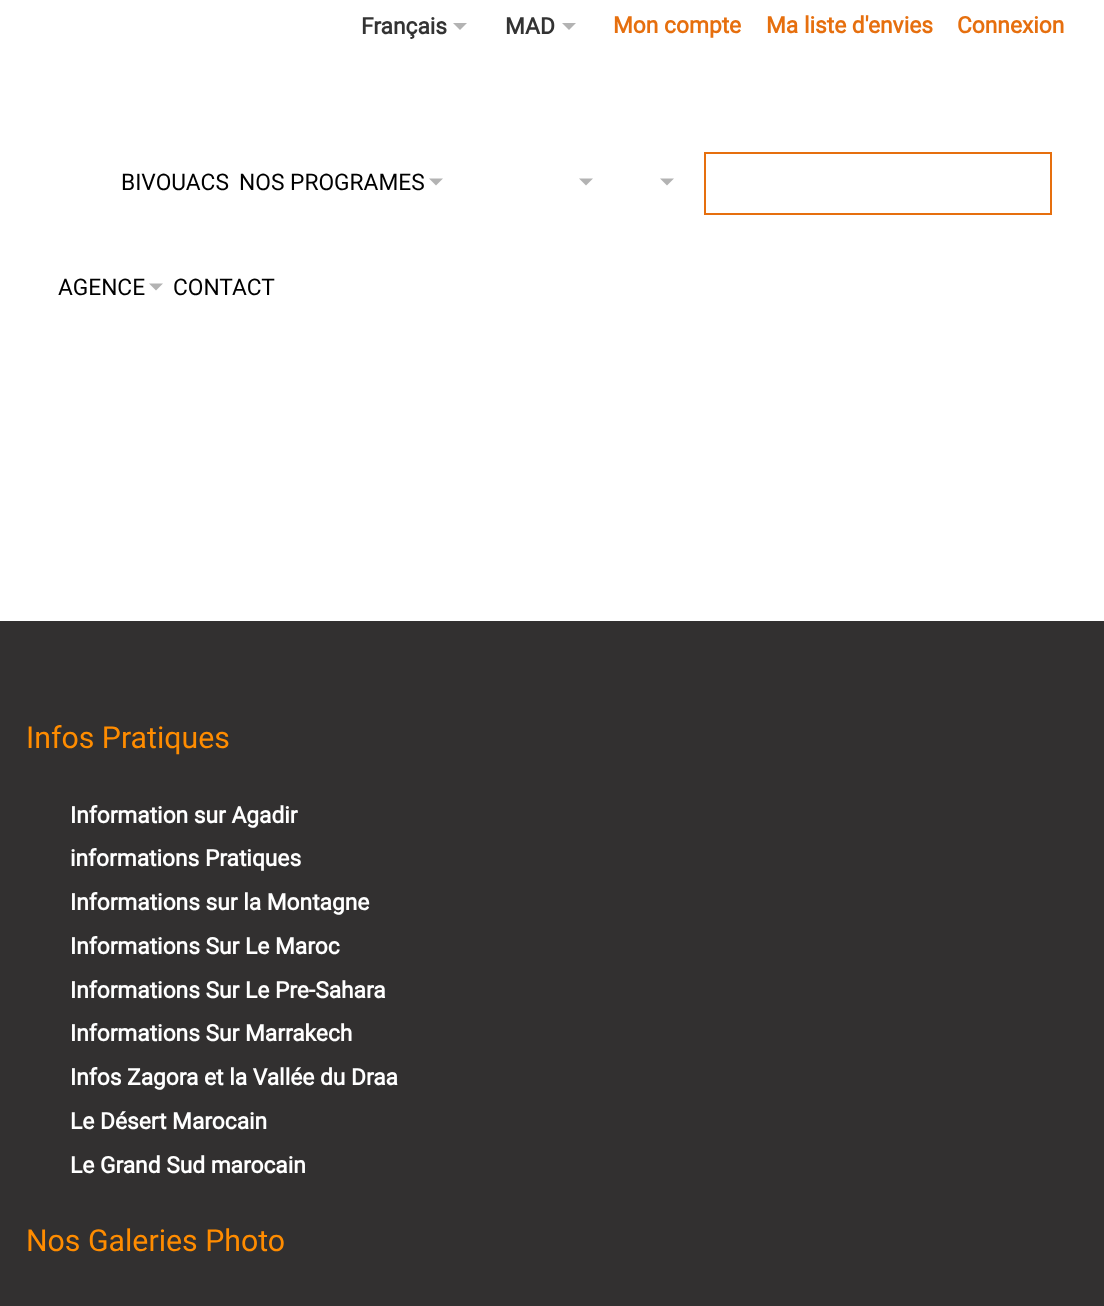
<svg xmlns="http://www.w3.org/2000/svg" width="1104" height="1306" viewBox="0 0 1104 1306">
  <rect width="100%" height="100%" fill="rgb(255,255,255)"/>
  <text x="361" y="34" font-family="Roboto" font-size="22.75" font-weight="bold" fill="rgb(51,51,51)">Français</text>
  <path d="M453 23H467L460 30Z" fill="rgb(179,179,179)"/>
  <text x="505" y="34" font-family="Roboto" font-size="22.75" font-weight="bold" fill="rgb(51,51,51)">MAD</text>
  <path d="M562 23H576L569 30Z" fill="rgb(179,179,179)"/>
  <g font-family="Roboto" font-size="22.75" font-weight="bold" fill="rgb(230,111,14)">
    <text x="613" y="33">Mon compte</text>
    <text x="766" y="33">Ma liste d'envies</text>
    <text x="957" y="33">Connexion</text>
  </g>
  <g font-family="Roboto" font-size="22.75" fill="rgb(0,0,0)">
    <text x="121" y="190">BIVOUACS</text>
    <text x="239" y="190">NOS PROGRAMES</text>
  </g>
  <path d="M429 178.5H443L436 185.5Z" fill="rgb(179,179,179)"/>
  <path d="M579 178.5H593L586 185.5Z" fill="rgb(179,179,179)"/>
  <path d="M660 178.5H674L667 185.5Z" fill="rgb(179,179,179)"/>
  <rect x="705" y="153" width="346" height="61" fill="none" stroke="rgb(230,111,14)" stroke-width="2"/>
  <text x="58" y="295" font-family="Roboto" font-size="22.75" fill="rgb(0,0,0)">AGENCE</text>
  <path d="M149 283.5H163L156 290.5Z" fill="rgb(179,179,179)"/>
  <text x="173" y="295" font-family="Roboto" font-size="22.75" fill="rgb(0,0,0)">CONTACT</text>
  <rect x="0" y="621" width="1104" height="685" fill="rgb(50,48,48)"/>
  <text x="26" y="748" font-family="Roboto" font-size="30.25" fill="rgb(255,140,0)">Infos Pratiques</text>
  <g font-family="Roboto" font-size="22.75" font-weight="bold" fill="rgb(255,255,255)">
    <text>
      <tspan x="70" y="823">Information sur Agadir</tspan>
      <tspan x="70" y="866">informations Pratiques</tspan>
      <tspan x="70" y="910">Informations sur la Montagne</tspan>
      <tspan x="70" y="954">Informations Sur Le Maroc</tspan>
      <tspan x="70" y="998">Informations Sur Le Pre-Sahara</tspan>
      <tspan x="70" y="1041">Informations Sur Marrakech</tspan>
      <tspan x="70" y="1085">Infos Zagora et la Vallée du Draa</tspan>
      <tspan x="70" y="1129">Le Désert Marocain</tspan>
      <tspan x="70" y="1173">Le Grand Sud marocain</tspan>
    </text>
  </g>
  <text x="26" y="1251" font-family="Roboto" font-size="30.25" fill="rgb(255,140,0)">Nos Galeries Photo</text>
</svg>
